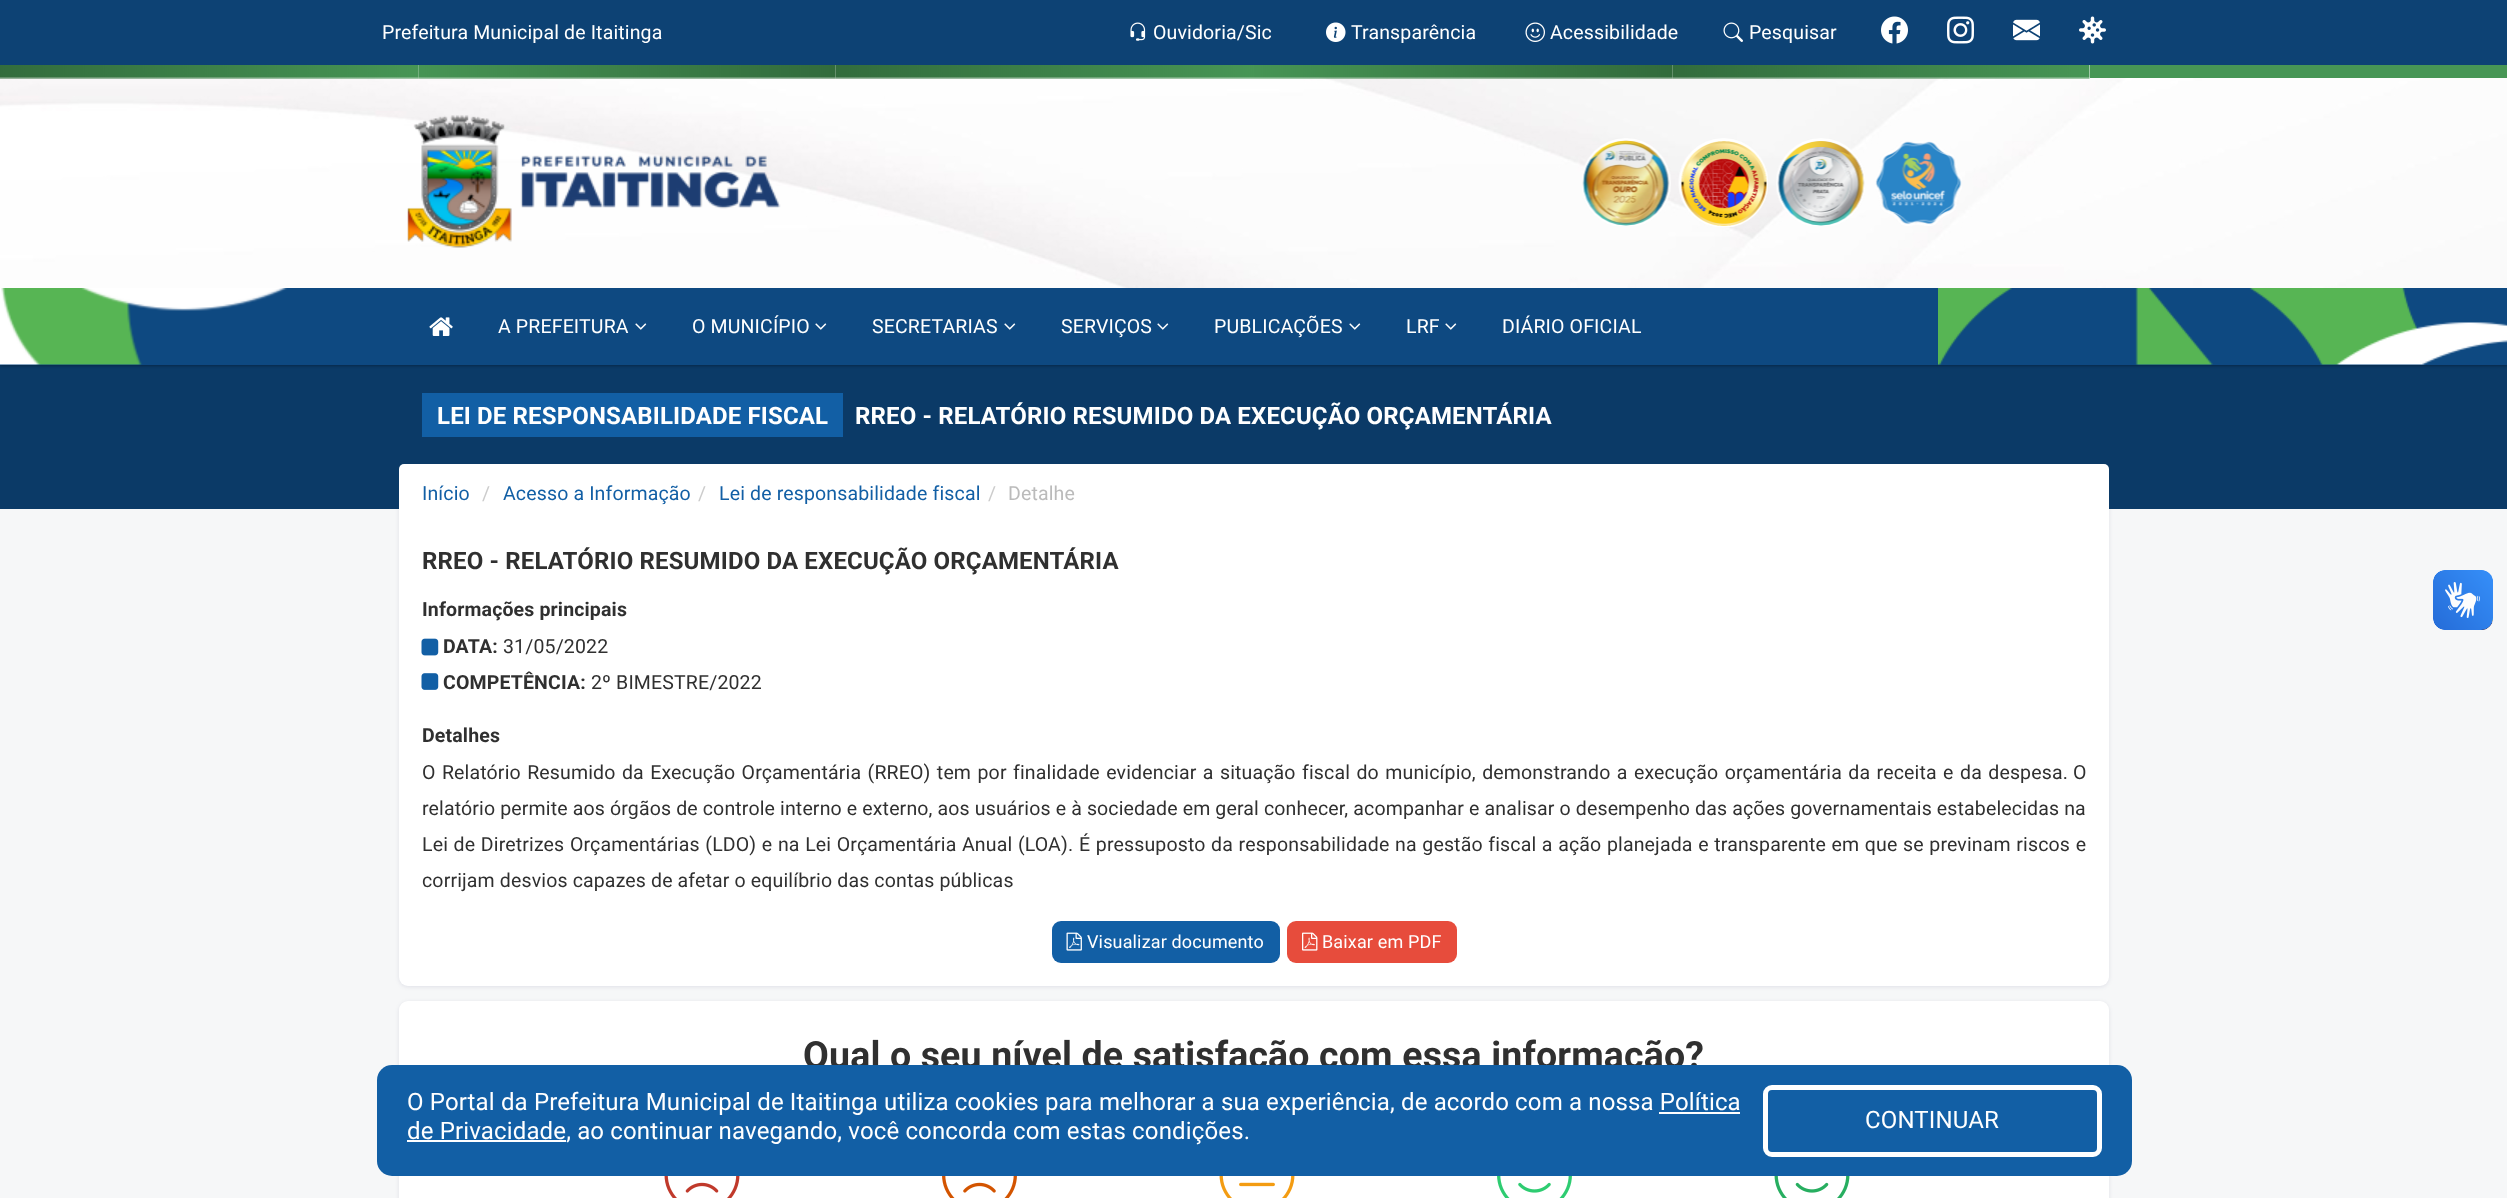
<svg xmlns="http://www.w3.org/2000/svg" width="2507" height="1198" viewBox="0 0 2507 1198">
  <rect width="100%" height="100%" fill="rgb(246,247,248)"/>
  <rect x="399" y="465" width="1710" height="522" rx="9" fill="rgba(3,0,71,0.09)" filter="blur(2px)"/>
  <rect x="399" y="464" width="1710" height="522" rx="9" fill="rgb(255,255,255)"/>
  <rect x="0" y="365" width="2507" height="144" fill="rgb(11,58,103)"/>
  <rect x="0" y="2" width="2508" height="364" fill="rgba(0,0,0,0.3)" filter="blur(1.5px)"/>
  <image x="0" y="65" width="2507" height="223" href="pic1.png"/>
  <rect x="0" y="0" width="2507" height="65" fill="rgb(13,66,116)"/>
  <text x="382" y="39" font-family="Roboto" font-size="19.5" letter-spacing="0.15" fill="rgb(255,255,255)">Prefeitura Municipal de Itaitinga</text>
  <image x="1130" y="22" width="16" height="19" href="pic2.png"/>
  <text x="1153" y="39" font-family="Roboto" font-size="19.5" letter-spacing="0.15" fill="rgb(255,255,255)">Ouvidoria/Sic</text>
  <image x="1326" y="22" width="20" height="20" href="pic3.png"/>
  <text x="1351" y="39" font-family="Roboto" font-size="19.5" letter-spacing="0.15" fill="rgb(255,255,255)">Transparência</text>
  <image x="1525" y="22" width="20" height="20" href="pic4.png"/>
  <text x="1550" y="39" font-family="Roboto" font-size="19.5" letter-spacing="0.15" fill="rgb(255,255,255)">Acessibilidade</text>
  <image x="1723" y="22" width="20" height="20" href="pic5.png"/>
  <text x="1749" y="39" font-family="Roboto" font-size="19.5" letter-spacing="0.15" fill="rgb(255,255,255)">Pesquisar</text>
  <image x="1881" y="16" width="27" height="28" href="pic6.png"/>
  <image x="1947" y="16" width="27" height="28" href="pic7.png"/>
  <image x="2013" y="19" width="27" height="22" href="pic8.png"/>
  <image x="2079" y="16" width="27" height="28" href="pic9.png"/>
  <image x="0" y="65" width="419" height="14" href="pic10.png"/>
  <image x="418" y="65" width="418" height="14" href="pic11.png"/>
  <image x="835" y="65" width="419" height="14" href="pic12.png"/>
  <image x="1254" y="65" width="419" height="14" href="pic13.png"/>
  <image x="1672" y="65" width="418" height="14" href="pic14.png"/>
  <rect x="2090" y="65" width="417" height="13" fill="rgb(71,150,85)"/>
  <image x="407" y="115" width="374" height="133" href="pic15.png"/>
  <image x="1582" y="138" width="89" height="88" href="pic16.png"/>
  <image x="1678" y="138" width="90" height="89" href="pic17.png"/>
  <image x="1776" y="138" width="89" height="88" href="pic18.png"/>
  <image x="1875" y="141" width="87" height="85" href="pic19.png"/>
  <rect x="0" y="288" width="2507" height="77" fill="rgb(14,73,129)"/>
  <image x="0" y="288" width="2507" height="77" href="pic20.png"/>
  <image x="429" y="317" width="24" height="19" href="pic21.png"/>
  <text x="498" y="333" font-family="Roboto" font-size="19.5" letter-spacing="0.15" fill="rgb(255,255,255)">A PREFEITURA</text>
  <image x="635" y="323" width="12" height="7" href="pic22.png"/>
  <text x="692" y="333" font-family="Roboto" font-size="19.5" letter-spacing="0.15" fill="rgb(255,255,255)">O MUNICÍPIO</text>
  <image x="815" y="323" width="12" height="7" href="pic22.png"/>
  <text x="872" y="333" font-family="Roboto" font-size="19.5" letter-spacing="0.15" fill="rgb(255,255,255)">SECRETARIAS</text>
  <image x="1004" y="323" width="12" height="7" href="pic22.png"/>
  <text x="1061" y="333" font-family="Roboto" font-size="19.5" letter-spacing="0.15" fill="rgb(255,255,255)">SERVIÇOS</text>
  <image x="1157" y="323" width="12" height="7" href="pic22.png"/>
  <text x="1214" y="333" font-family="Roboto" font-size="19.5" letter-spacing="0.15" fill="rgb(255,255,255)">PUBLICAÇÕES</text>
  <image x="1349" y="323" width="12" height="7" href="pic22.png"/>
  <text x="1406" y="333" font-family="Roboto" font-size="19.5" letter-spacing="0.15" fill="rgb(255,255,255)">LRF</text>
  <image x="1445" y="323" width="12" height="7" href="pic22.png"/>
  <text x="1502" y="333" font-family="Roboto" font-size="19.5" letter-spacing="0.15" fill="rgb(255,255,255)">DIÁRIO OFICIAL</text>
  <rect x="422" y="393" width="421" height="44" fill="rgb(18,95,165)"/>
  <g font-family="Roboto" font-size="24" font-weight="bold" letter-spacing="0.15" fill="rgb(255,255,255)">
    <text x="437" y="424">LEI DE RESPONSABILIDADE FISCAL</text>
    <text x="855" y="424">RREO - RELATÓRIO RESUMIDO DA EXECUÇÃO ORÇAMENTÁRIA</text>
  </g>
  <rect x="399" y="464" width="1710" height="60" rx="5" fill="rgb(255,255,255)"/>
  <text x="422" y="500" font-family="Roboto" font-size="19.5" letter-spacing="0.15" fill="rgb(18,95,165)">Início</text>
  <text x="482" y="500" font-family="Roboto" font-size="19.5" letter-spacing="0.15" fill="rgb(204,204,204)">/</text>
  <text x="503" y="500" font-family="Roboto" font-size="19.5" letter-spacing="0.15" fill="rgb(18,95,165)">Acesso a Informação</text>
  <text x="698" y="500" font-family="Roboto" font-size="19.5" letter-spacing="0.15" fill="rgb(204,204,204)">/</text>
  <text x="719" y="500" font-family="Roboto" font-size="19.5" letter-spacing="0.15" fill="rgb(18,95,165)">Lei de responsabilidade fiscal</text>
  <text x="988" y="500" font-family="Roboto" font-size="19.5" letter-spacing="0.15" fill="rgb(204,204,204)">/</text>
  <text x="1008" y="500" font-family="Roboto" font-size="19.5" letter-spacing="0.15" fill="rgb(187,187,187)">Detalhe</text>
  <text x="422" y="569" font-family="Roboto" font-size="24" font-weight="bold" letter-spacing="0.15" fill="rgb(48,48,48)">RREO - RELATÓRIO RESUMIDO DA EXECUÇÃO ORÇAMENTÁRIA</text>
  <text x="422" y="616" font-family="Roboto" font-size="19.5" font-weight="bold" letter-spacing="0.15" fill="rgb(48,48,48)">Informações principais</text>
  <image x="421" y="638" width="18" height="18" href="pic23.png"/>
  <text x="443" y="653" font-family="Roboto" font-size="19.5" font-weight="bold" letter-spacing="0.15" fill="rgb(48,48,48)">DATA:</text>
  <text x="503" y="653" font-family="Roboto" font-size="19.5" letter-spacing="0.15" fill="rgb(48,48,48)">31/05/2022</text>
  <image x="421" y="673" width="18" height="17" href="pic24.png"/>
  <text x="443" y="689" font-family="Roboto" font-size="19.5" font-weight="bold" letter-spacing="0.15" fill="rgb(48,48,48)">COMPETÊNCIA:</text>
  <text x="591" y="689" font-family="Roboto" font-size="19.5" letter-spacing="0.15" fill="rgb(48,48,48)">2º BIMESTRE/2022</text>
  <text x="422" y="742" font-family="Roboto" font-size="19.5" font-weight="bold" letter-spacing="0.15" fill="rgb(48,48,48)">Detalhes</text>
  <g font-family="Roboto" font-size="19.5" letter-spacing="0.15" fill="rgb(48,48,48)">
    <text x="422" y="779" word-spacing="1.4">O Relatório Resumido da Execução Orçamentária (RREO) tem por finalidade evidenciar a situação fiscal do município, demonstrando a execução orçamentária da receita e da despesa.</text>
    <text x="2073" y="779">O</text>
    <text>
      <tspan x="422" y="815">relatório permite aos órgãos de controle interno e externo, aos usuários e à sociedade em geral conhecer, acompanhar e analisar o desempenho das ações governamentais estabelecidas na</tspan>
      <tspan x="422" y="851" word-spacing="0.6">Lei de Diretrizes Orçamentárias (LDO) e na Lei Orçamentária Anual (LOA).</tspan>
    </text>
    <text x="1079" y="851" word-spacing="0.6">É pressuposto da responsabilidade na gestão fiscal a ação planejada e transparente em que se previnam riscos e</text>
    <text x="422" y="887">corrijam desvios capazes de afetar o equilíbrio das contas públicas</text>
  </g>
  <rect x="1052" y="921" width="228" height="42" rx="9" fill="rgb(18,95,165)"/>
  <image x="1066" y="932" width="16" height="19" href="pic25.png"/>
  <text x="1087" y="948" font-family="Roboto" font-size="18" letter-spacing="0.15" fill="rgb(255,255,255)">Visualizar documento</text>
  <rect x="1287" y="921" width="170" height="42" rx="9" fill="rgb(231,76,60)"/>
  <image x="1302" y="932" width="16" height="19" href="pic26.png"/>
  <text x="1322" y="948" font-family="Roboto" font-size="18" letter-spacing="0.15" fill="rgb(255,255,255)">Baixar em PDF</text>
  <image x="2433" y="570" width="60" height="60" href="pic27.png"/>
  <image x="2433" y="570" width="60" height="60" href="pic28.png"/>
  <rect x="399" y="1002" width="1710" height="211" rx="9" fill="rgba(3,0,71,0.09)" filter="blur(2px)"/>
  <rect x="399" y="1001" width="1710" height="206" rx="9" fill="rgb(255,255,255)"/>
  <text x="803" y="1068" font-family="Roboto" font-size="37.5" font-weight="bold" letter-spacing="0.15" fill="rgb(48,48,48)">Qual o seu nível de satisfação com essa informação?</text>
  <image x="664" y="1176" width="76" height="22" href="pic29.png"/>
  <image x="942" y="1176" width="75" height="22" href="pic30.png"/>
  <image x="1219" y="1176" width="76" height="22" href="pic31.png"/>
  <image x="1497" y="1176" width="75" height="22" href="pic32.png"/>
  <image x="1774" y="1176" width="76" height="22" href="pic33.png"/>
  <rect x="377" y="1065" width="1755" height="111" rx="15" fill="rgb(18,95,165)"/>
  <text x="407" y="1110" font-family="Roboto" font-size="24" letter-spacing="0.15" fill="rgb(255,255,255)">O Portal da Prefeitura Municipal de Itaitinga utiliza cookies para melhorar a sua experiência, de acordo com a nossa Política</text>
  <rect x="407" y="1140" width="159" height="2" fill="rgb(255,255,255)"/>
  <text x="407" y="1139" font-family="Roboto" font-size="24" letter-spacing="0.15" fill="rgb(255,255,255)">de Privacidade, ao continuar navegando, você concorda com estas condições.</text>
  <rect x="1659" y="1112" width="81" height="2" fill="rgb(255,255,255)"/>
  <rect x="1765.5" y="1087.5" width="334" height="67" rx="6.5" fill="none" stroke="rgb(255,255,255)" stroke-width="5"/>
  <text x="1865" y="1128" font-family="Roboto" font-size="24" letter-spacing="0.15" fill="rgb(255,255,255)">CONTINUAR</text>
</svg>
